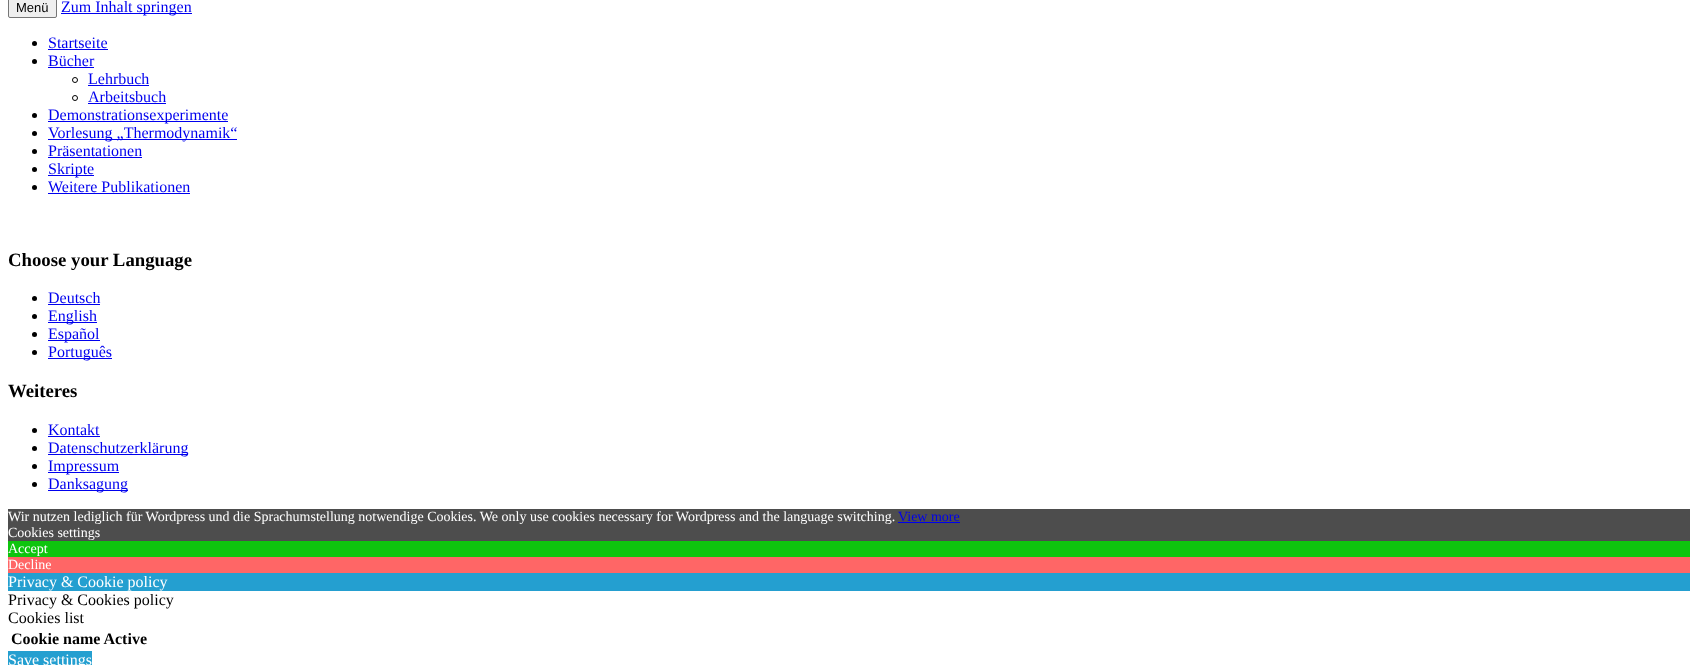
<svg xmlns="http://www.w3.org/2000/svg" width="1698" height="665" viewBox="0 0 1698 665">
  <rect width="100%" height="100%" fill="rgb(255,255,255)"/>
  <rect x="8.5" y="-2.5" width="48" height="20" rx="1.5" fill="rgb(239,239,239)" stroke="rgb(118,118,118)"/>
  <text x="16" y="12" font-family="Liberation Sans" font-size="13" fill="rgb(0,0,0)">Menü</text>
  <rect x="61" y="13" width="131" height="1" fill="rgb(0,0,238)"/>
  <text x="61" y="12" font-family="Liberation Serif" font-size="16" fill="rgb(0,0,238)">Zum Inhalt springen</text>
  <circle cx="34.5" cy="43.5" r="2.5" fill="rgb(0,0,0)"/>
  <text x="48" y="48" font-family="Liberation Serif" font-size="16" fill="rgb(0,0,238)">Startseite</text>
  <rect x="48" y="49" width="60" height="1" fill="rgb(0,0,238)"/>
  <circle cx="34.5" cy="61.5" r="2.5" fill="rgb(0,0,0)"/>
  <text x="48" y="66" font-family="Liberation Serif" font-size="16" fill="rgb(0,0,238)">Bücher</text>
  <rect x="48" y="67" width="46" height="1" fill="rgb(0,0,238)"/>
  <circle cx="75" cy="80" r="2.5" fill="none" stroke="rgb(0,0,0)"/>
  <text x="88" y="84" font-family="Liberation Serif" font-size="16" fill="rgb(0,0,238)">Lehrbuch</text>
  <rect x="88" y="85" width="61" height="1" fill="rgb(0,0,238)"/>
  <circle cx="75" cy="98" r="2.5" fill="none" stroke="rgb(0,0,0)"/>
  <text x="88" y="102" font-family="Liberation Serif" font-size="16" fill="rgb(0,0,238)">Arbeitsbuch</text>
  <rect x="88" y="103" width="78" height="1" fill="rgb(0,0,238)"/>
  <circle cx="34.5" cy="115.5" r="2.5" fill="rgb(0,0,0)"/>
  <rect x="48" y="121" width="180" height="1" fill="rgb(0,0,238)"/>
  <text x="48" y="120" font-family="Liberation Serif" font-size="16" fill="rgb(0,0,238)">Demonstrationsexperimente</text>
  <circle cx="34.5" cy="133.5" r="2.5" fill="rgb(0,0,0)"/>
  <rect x="48" y="139" width="189" height="1" fill="rgb(0,0,238)"/>
  <text x="48" y="138" font-family="Liberation Serif" font-size="16" fill="rgb(0,0,238)">Vorlesung „Thermodynamik“</text>
  <circle cx="34.5" cy="151.5" r="2.5" fill="rgb(0,0,0)"/>
  <text x="48" y="156" font-family="Liberation Serif" font-size="16" fill="rgb(0,0,238)">Präsentationen</text>
  <rect x="48" y="157" width="94" height="1" fill="rgb(0,0,238)"/>
  <circle cx="34.5" cy="169.5" r="2.5" fill="rgb(0,0,0)"/>
  <rect x="48" y="175" width="46" height="1" fill="rgb(0,0,238)"/>
  <text x="48" y="174" font-family="Liberation Serif" font-size="16" fill="rgb(0,0,238)">Skripte</text>
  <circle cx="34.5" cy="187.5" r="2.5" fill="rgb(0,0,0)"/>
  <text x="48" y="192" font-family="Liberation Serif" font-size="16" fill="rgb(0,0,238)">Weitere Publikationen</text>
  <rect x="48" y="193" width="142" height="1" fill="rgb(0,0,238)"/>
  <text x="8" y="266" font-family="Liberation Serif" font-size="18.75" font-weight="bold" fill="rgb(0,0,0)">Choose your Language</text>
  <circle cx="34.5" cy="298.5" r="2.5" fill="rgb(0,0,0)"/>
  <text x="48" y="303" font-family="Liberation Serif" font-size="16" fill="rgb(0,0,238)">Deutsch</text>
  <rect x="48" y="304" width="52" height="1" fill="rgb(0,0,238)"/>
  <circle cx="34.5" cy="316.5" r="2.5" fill="rgb(0,0,0)"/>
  <rect x="48" y="322" width="49" height="1" fill="rgb(0,0,238)"/>
  <text x="48" y="321" font-family="Liberation Serif" font-size="16" fill="rgb(0,0,238)">English</text>
  <circle cx="34.5" cy="334.5" r="2.5" fill="rgb(0,0,0)"/>
  <rect x="48" y="340" width="52" height="1" fill="rgb(0,0,238)"/>
  <text x="48" y="339" font-family="Liberation Serif" font-size="16" fill="rgb(0,0,238)">Español</text>
  <circle cx="34.5" cy="352.5" r="2.5" fill="rgb(0,0,0)"/>
  <rect x="48" y="358" width="64" height="1" fill="rgb(0,0,238)"/>
  <text x="48" y="357" font-family="Liberation Serif" font-size="16" fill="rgb(0,0,238)">Português</text>
  <text x="8" y="397" font-family="Liberation Serif" font-size="18.75" font-weight="bold" fill="rgb(0,0,0)">Weiteres</text>
  <circle cx="34.5" cy="430.5" r="2.5" fill="rgb(0,0,0)"/>
  <text x="48" y="435" font-family="Liberation Serif" font-size="16" fill="rgb(0,0,238)">Kontakt</text>
  <rect x="48" y="436" width="52" height="1" fill="rgb(0,0,238)"/>
  <circle cx="34.5" cy="448.5" r="2.5" fill="rgb(0,0,0)"/>
  <rect x="48" y="454" width="140" height="1" fill="rgb(0,0,238)"/>
  <text x="48" y="453" font-family="Liberation Serif" font-size="16" fill="rgb(0,0,238)">Datenschutzerklärung</text>
  <circle cx="34.5" cy="466.5" r="2.5" fill="rgb(0,0,0)"/>
  <rect x="48" y="472" width="71" height="1" fill="rgb(0,0,238)"/>
  <text x="48" y="471" font-family="Liberation Serif" font-size="16" fill="rgb(0,0,238)">Impressum</text>
  <circle cx="34.5" cy="484.5" r="2.5" fill="rgb(0,0,0)"/>
  <rect x="48" y="490" width="80" height="1" fill="rgb(0,0,238)"/>
  <text x="48" y="489" font-family="Liberation Serif" font-size="16" fill="rgb(0,0,238)">Danksagung</text>
  <rect x="8" y="509" width="1682" height="32" fill="rgb(77,77,77)"/>
  <text x="8" y="521" font-family="Liberation Serif" font-size="14" fill="rgb(255,255,255)">Wir nutzen lediglich für Wordpress und die Sprachumstellung notwendige Cookies. We only use cookies necessary for Wordpress and the language switching.</text>
  <text x="898" y="521" font-family="Liberation Serif" font-size="14" fill="rgb(0,0,238)">View more</text>
  <rect x="898" y="522" width="62" height="1" fill="rgb(0,0,238)"/>
  <text x="8" y="537" font-family="Liberation Serif" font-size="14" fill="rgb(255,255,255)">Cookies settings</text>
  <rect x="8" y="541" width="1682" height="16" fill="rgb(14,197,14)"/>
  <text x="8" y="553" font-family="Liberation Serif" font-size="14" fill="rgb(255,255,255)">Accept</text>
  <rect x="8" y="557" width="1682" height="16" fill="rgb(255,102,102)"/>
  <text x="8" y="569" font-family="Liberation Serif" font-size="14" fill="rgb(255,255,255)">Decline</text>
  <rect x="8" y="573" width="1682" height="18" fill="rgb(36,159,208)"/>
  <text x="8" y="587" font-family="Liberation Serif" font-size="16" fill="rgb(255,255,255)">Privacy &amp; Cookie policy</text>
  <g font-family="Liberation Serif" font-size="16" fill="rgb(0,0,0)">
    <text>
      <tspan x="8" y="605">Privacy &amp; Cookies policy</tspan>
      <tspan x="8" y="623">Cookies list</tspan>
    </text>
  </g>
  <text x="11" y="644" font-family="Liberation Serif" font-size="16" font-weight="bold" fill="rgb(0,0,0)">Cookie name Active</text>
  <rect x="8" y="651" width="84" height="14" fill="rgb(36,159,208)"/>
  <text x="8" y="665" font-family="Liberation Serif" font-size="16" fill="rgb(255,255,255)">Save settings</text>
</svg>
